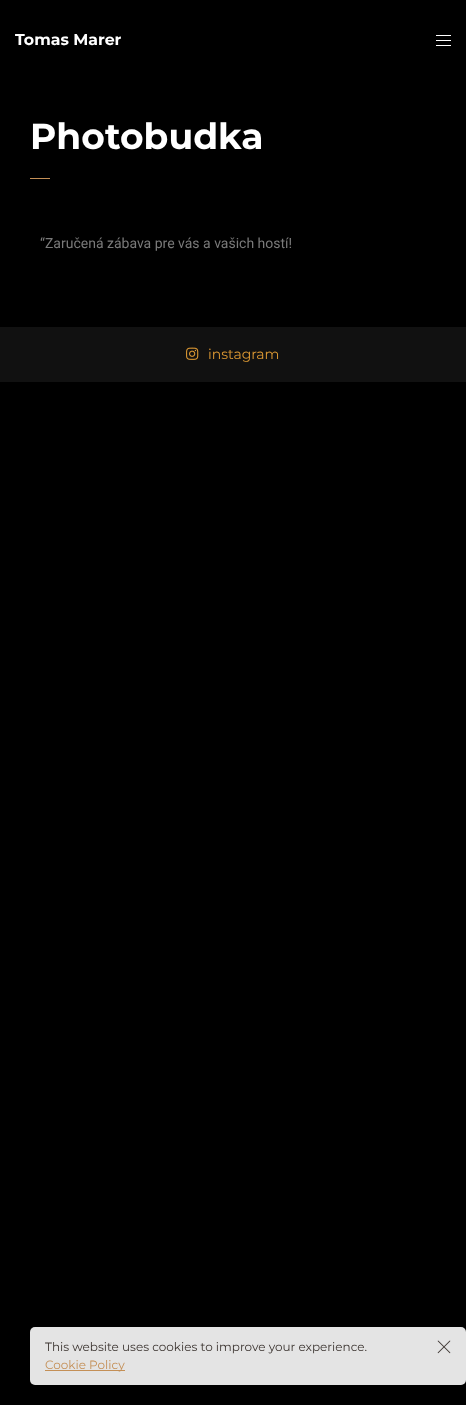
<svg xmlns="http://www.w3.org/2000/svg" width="466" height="1405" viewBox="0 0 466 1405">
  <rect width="100%" height="100%" fill="rgb(0,0,0)"/>
  <text x="15" y="45" font-family="Montserrat" font-size="15.75" font-weight="bold" fill="rgb(255,255,255)">Tomas Marer</text>
  <rect x="436" y="35" width="15" height="1" fill="rgb(255,255,255)"/>
  <rect x="436" y="40" width="15" height="1" fill="rgb(255,255,255)"/>
  <rect x="436" y="45" width="15" height="1" fill="rgb(255,255,255)"/>
  <text x="30" y="149" font-family="Montserrat" font-size="36" font-weight="bold" fill="rgb(255,255,255)">Photobudka</text>
  <rect x="30" y="178" width="20" height="1" fill="rgb(196,143,86)"/>
  <text x="40" y="248" font-family="Roboto" font-size="14" fill="rgb(122,122,122)">“Zaručená zábava pre vás a vašich hostí!</text>
  <rect x="0" y="327" width="466" height="55" fill="rgb(17,17,17)"/>
  <image x="186" y="347" width="13" height="13" href="pic1.png"/>
  <text x="208" y="359" font-family="Montserrat" font-size="14" fill="rgb(221,153,51)">instagram</text>
  <rect x="30" y="1327" width="436" height="58" rx="5" fill="rgb(228,228,228)"/>
  <text x="45" y="1351" font-family="Montserrat" font-size="12" fill="rgb(60,53,49)">This website uses cookies to improve your experience.</text>
  <rect x="45" y="1370" width="80" height="1" fill="rgb(196,143,86)"/>
  <text x="45" y="1369" font-family="Montserrat" font-size="12" fill="rgb(196,143,86)">Cookie Policy</text>
  <image x="437" y="1340" width="14" height="14" href="pic2.png"/>
</svg>
